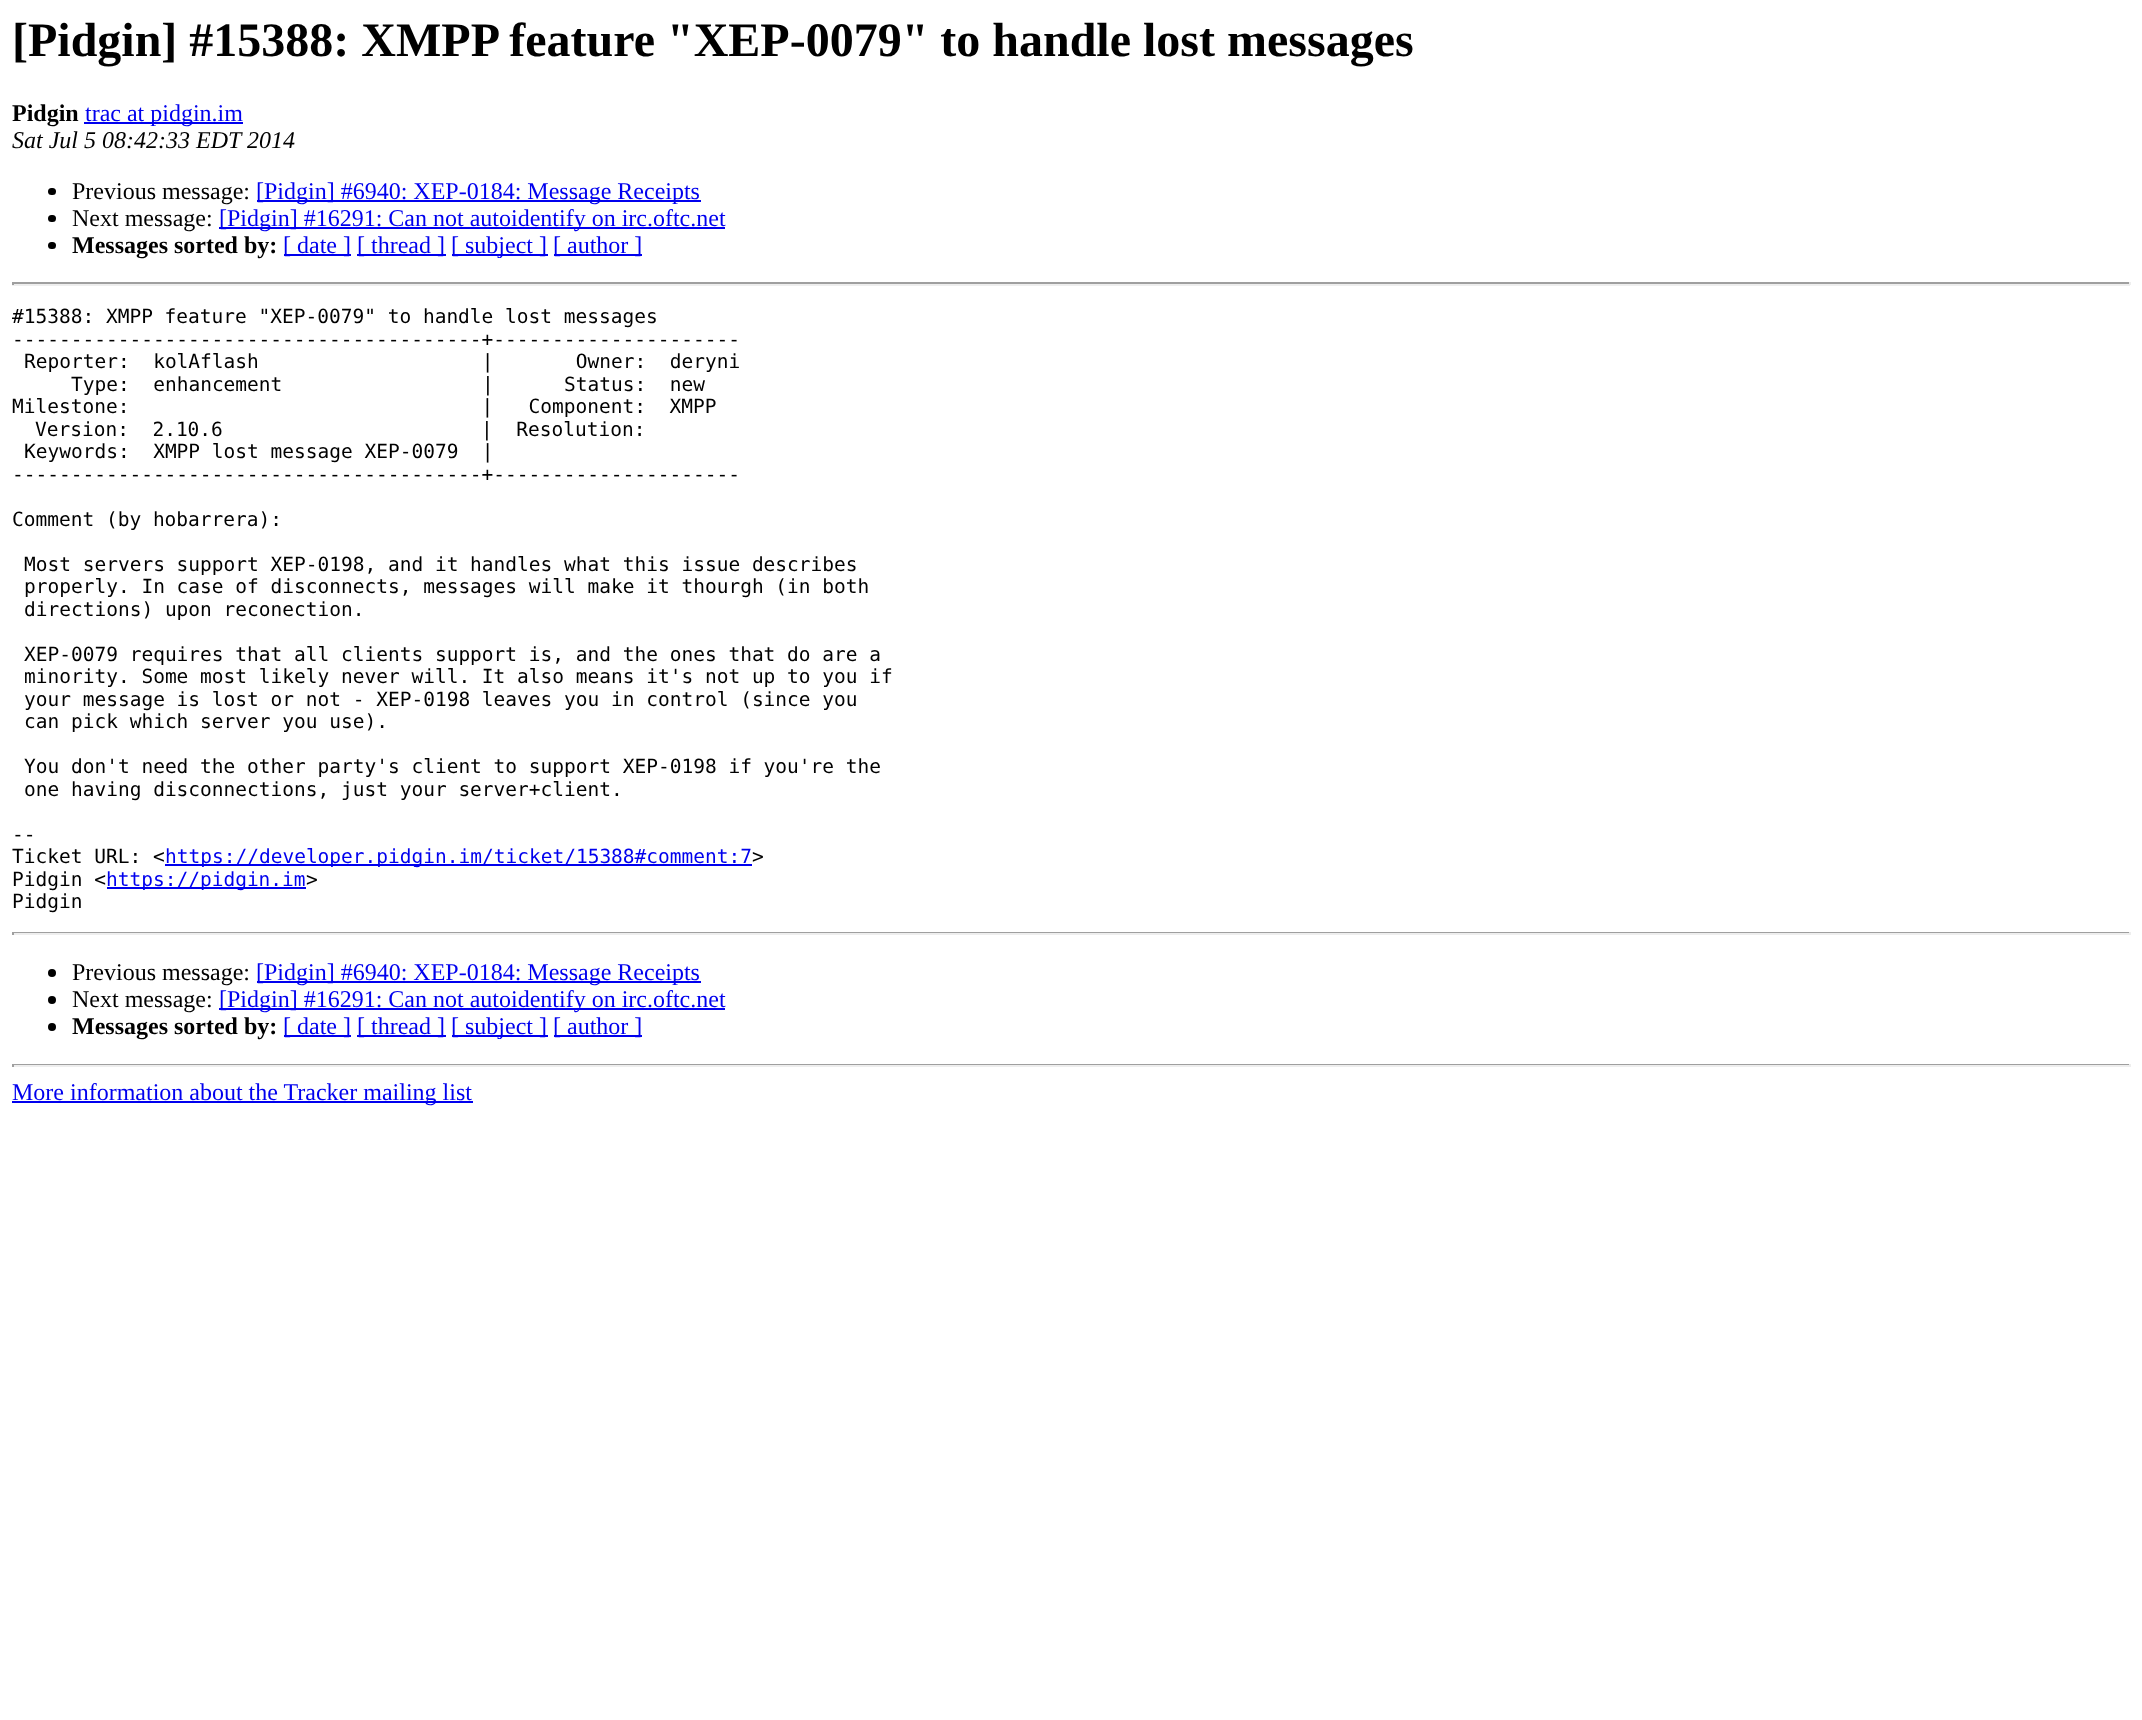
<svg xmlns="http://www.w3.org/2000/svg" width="2142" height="1720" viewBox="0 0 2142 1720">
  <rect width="100%" height="100%" fill="rgb(255,255,255)"/>
  <text x="12" y="56" font-family="Liberation Serif" font-size="48" font-weight="bold" fill="rgb(0,0,0)">[Pidgin] #15388: XMPP feature "XEP-0079" to handle lost messages</text>
  <text x="12" y="121" font-family="Liberation Serif" font-size="24" font-weight="bold" fill="rgb(0,0,0)">Pidgin</text>
  <rect x="84" y="122" width="159" height="2" fill="rgb(0,0,238)"/>
  <text x="85" y="121" font-family="Liberation Serif" font-size="24" fill="rgb(0,0,238)">trac at pidgin.im</text>
  <text x="12" y="148" font-family="Liberation Serif" font-size="24" font-style="italic" fill="rgb(0,0,0)">Sat Jul 5 08:42:33 EDT 2014</text>
  <rect x="48" y="188" width="8" height="7" rx="3.5" fill="rgb(0,0,0)"/>
  <text x="72" y="199" font-family="Liberation Serif" font-size="24" fill="rgb(0,0,0)">Previous message:</text>
  <rect x="257" y="200" width="444" height="2" fill="rgb(0,0,238)"/>
  <text x="256" y="199" font-family="Liberation Serif" font-size="24" fill="rgb(0,0,238)">[Pidgin] #6940: XEP-0184: Message Receipts</text>
  <rect x="48" y="215" width="8" height="7" rx="3.5" fill="rgb(0,0,0)"/>
  <text x="72" y="226" font-family="Liberation Serif" font-size="24" fill="rgb(0,0,0)">Next message:</text>
  <rect x="219" y="227" width="506" height="2" fill="rgb(0,0,238)"/>
  <text x="219" y="226" font-family="Liberation Serif" font-size="24" fill="rgb(0,0,238)">[Pidgin] #16291: Can not autoidentify on irc.oftc.net</text>
  <rect x="48" y="242" width="8" height="7" rx="3.5" fill="rgb(0,0,0)"/>
  <text x="72" y="253" font-family="Liberation Serif" font-size="24" font-weight="bold" fill="rgb(0,0,0)">Messages sorted by:</text>
  <rect x="284" y="254" width="67" height="2" fill="rgb(0,0,238)"/>
  <text x="283" y="253" font-family="Liberation Serif" font-size="24" fill="rgb(0,0,238)">[ date ]</text>
  <rect x="357" y="254" width="89" height="2" fill="rgb(0,0,238)"/>
  <text x="357" y="253" font-family="Liberation Serif" font-size="24" fill="rgb(0,0,238)">[ thread ]</text>
  <rect x="452" y="254" width="96" height="2" fill="rgb(0,0,238)"/>
  <text x="451" y="253" font-family="Liberation Serif" font-size="24" fill="rgb(0,0,238)">[ subject ]</text>
  <rect x="554" y="254" width="88" height="2" fill="rgb(0,0,238)"/>
  <text x="553" y="253" font-family="Liberation Serif" font-size="24" fill="rgb(0,0,238)">[ author ]</text>
  <rect x="12" y="282" width="2118" height="2" fill="rgb(159,159,159)"/>
  <rect x="2129" y="282" width="2" height="3" fill="rgb(238,238,238)"/>
  <rect x="12" y="284" width="2118" height="2" fill="rgb(238,238,238)"/>
  <rect x="12" y="282" width="2" height="3" fill="rgb(159,159,159)"/>
  <g font-family="DejaVu Sans Mono" font-size="19.5" fill="rgb(0,0,0)">
    <text>
      <tspan x="12" y="323">#15388: XMPP feature "XEP-0079" to handle lost messages</tspan>
      <tspan x="12" y="346">----------------------------------------+---------------------</tspan>
    </text>
    <text x="24" y="368" xml:space="preserve">Reporter:  kolAflash                   |       Owner:  deryni</text>
    <text x="71" y="391" xml:space="preserve">Type:  enhancement                 |      Status:  new</text>
    <text x="12" y="413" xml:space="preserve">Milestone:                              |   Component:  XMPP</text>
    <text x="35" y="436" xml:space="preserve">Version:  2.10.6                      |  Resolution:</text>
    <text x="24" y="458" xml:space="preserve">Keywords:  XMPP lost message XEP-0079  |</text>
    <text x="12" y="481">----------------------------------------+---------------------</text>
    <text x="12" y="526">Comment (by hobarrera):</text>
    <text>
      <tspan x="24" y="571">Most servers support XEP-0198, and it handles what this issue describes</tspan>
      <tspan x="24" y="593">properly. In case of disconnects, messages will make it thourgh (in both</tspan>
      <tspan x="24" y="616">directions) upon reconection.</tspan>
    </text>
    <text>
      <tspan x="24" y="661">XEP-0079 requires that all clients support is, and the ones that do are a</tspan>
      <tspan x="24" y="683">minority. Some most likely never will. It also means it's not up to you if</tspan>
      <tspan x="24" y="706">your message is lost or not - XEP-0198 leaves you in control (since you</tspan>
      <tspan x="24" y="728">can pick which server you use).</tspan>
    </text>
    <text>
      <tspan x="24" y="773">You don't need the other party's client to support XEP-0198 if you're the</tspan>
      <tspan x="24" y="796">one having disconnections, just your server+client.</tspan>
    </text>
    <text>
      <tspan x="12" y="841">--</tspan>
      <tspan x="12" y="863">Ticket URL: &lt;</tspan>
    </text>
  </g>
  <rect x="165" y="864" width="587" height="2" fill="rgb(0,0,238)"/>
  <text x="165" y="863" font-family="DejaVu Sans Mono" font-size="19.5" fill="rgb(0,0,238)">https://developer.pidgin.im/ticket/15388#comment:7</text>
  <g font-family="DejaVu Sans Mono" font-size="19.5" fill="rgb(0,0,0)">
    <text x="752" y="863">&gt;</text>
    <text x="12" y="886">Pidgin &lt;</text>
  </g>
  <rect x="107" y="887" width="199" height="2" fill="rgb(0,0,238)"/>
  <text x="106" y="886" font-family="DejaVu Sans Mono" font-size="19.5" fill="rgb(0,0,238)">https://pidgin.im</text>
  <g font-family="DejaVu Sans Mono" font-size="19.5" fill="rgb(0,0,0)">
    <text x="306" y="886">&gt;</text>
    <text x="12" y="908">Pidgin</text>
  </g>
  <rect x="12" y="932" width="2118" height="1" fill="rgb(159,159,159)"/>
  <rect x="2129" y="932" width="2" height="3" fill="rgb(238,238,238)"/>
  <rect x="12" y="933" width="2118" height="2" fill="rgb(238,238,238)"/>
  <rect x="12" y="932" width="2" height="3" fill="rgb(159,159,159)"/>
  <circle cx="52" cy="973" r="4" fill="rgb(0,0,0)"/>
  <text x="72" y="980" font-family="Liberation Serif" font-size="24" fill="rgb(0,0,0)">Previous message:</text>
  <rect x="257" y="981" width="444" height="2" fill="rgb(0,0,238)"/>
  <text x="256" y="980" font-family="Liberation Serif" font-size="24" fill="rgb(0,0,238)">[Pidgin] #6940: XEP-0184: Message Receipts</text>
  <circle cx="52" cy="1000" r="4" fill="rgb(0,0,0)"/>
  <text x="72" y="1007" font-family="Liberation Serif" font-size="24" fill="rgb(0,0,0)">Next message:</text>
  <rect x="219" y="1008" width="506" height="2" fill="rgb(0,0,238)"/>
  <text x="219" y="1007" font-family="Liberation Serif" font-size="24" fill="rgb(0,0,238)">[Pidgin] #16291: Can not autoidentify on irc.oftc.net</text>
  <circle cx="52" cy="1027" r="4" fill="rgb(0,0,0)"/>
  <text x="72" y="1034" font-family="Liberation Serif" font-size="24" font-weight="bold" fill="rgb(0,0,0)">Messages sorted by:</text>
  <rect x="284" y="1035" width="67" height="2" fill="rgb(0,0,238)"/>
  <text x="283" y="1034" font-family="Liberation Serif" font-size="24" fill="rgb(0,0,238)">[ date ]</text>
  <rect x="357" y="1035" width="89" height="2" fill="rgb(0,0,238)"/>
  <text x="357" y="1034" font-family="Liberation Serif" font-size="24" fill="rgb(0,0,238)">[ thread ]</text>
  <rect x="452" y="1035" width="96" height="2" fill="rgb(0,0,238)"/>
  <text x="451" y="1034" font-family="Liberation Serif" font-size="24" fill="rgb(0,0,238)">[ subject ]</text>
  <rect x="554" y="1035" width="88" height="2" fill="rgb(0,0,238)"/>
  <text x="553" y="1034" font-family="Liberation Serif" font-size="24" fill="rgb(0,0,238)">[ author ]</text>
  <rect x="12" y="1064" width="2118" height="1" fill="rgb(159,159,159)"/>
  <rect x="2129" y="1064" width="2" height="3" fill="rgb(238,238,238)"/>
  <rect x="12" y="1065" width="2118" height="2" fill="rgb(238,238,238)"/>
  <rect x="12" y="1064" width="2" height="3" fill="rgb(159,159,159)"/>
  <rect x="12" y="1101" width="461" height="2" fill="rgb(0,0,238)"/>
  <text x="12" y="1100" font-family="Liberation Serif" font-size="24" fill="rgb(0,0,238)">More information about the Tracker mailing list</text>
</svg>
